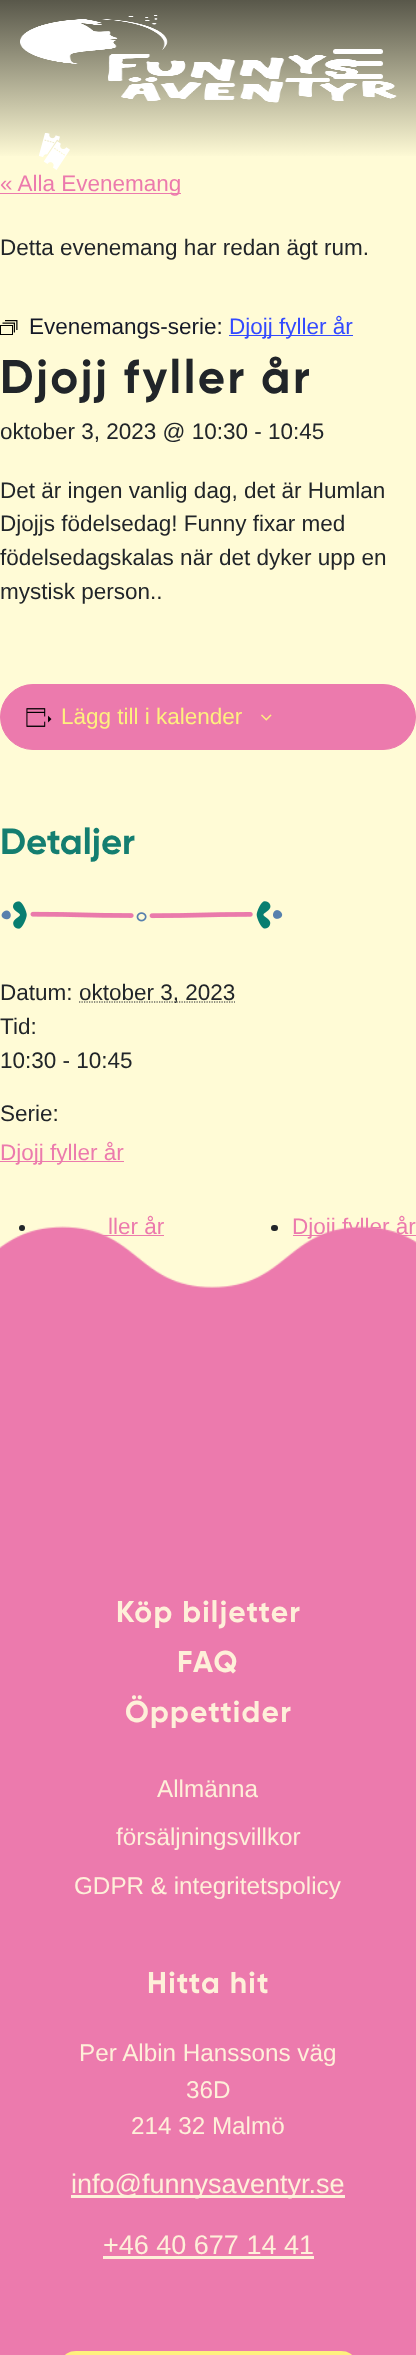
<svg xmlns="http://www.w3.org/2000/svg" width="416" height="2355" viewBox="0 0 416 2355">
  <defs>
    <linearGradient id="g1" gradientUnits="userSpaceOnUse" x1="208" y1="-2.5" x2="208" y2="158"><stop offset="0" stop-color="rgb(86,85,72)"/><stop offset="1" stop-color="rgb(255,251,214)"/></linearGradient>
  </defs>
  <rect width="100%" height="100%" fill="rgb(255,251,214)"/>
  <rect x="0" y="0" width="416" height="156" fill="url(#g1)"/>
  <image x="20" y="15" width="377" height="88" href="pic1.png"/>
  <image x="39" y="133" width="31" height="37" href="pic2.png"/>
  <rect x="333" y="49" width="50" height="5" rx="2.5" fill="rgb(255,255,255)"/>
  <rect x="333" y="61" width="50" height="5" rx="2.5" fill="rgb(255,255,255)"/>
  <rect x="333" y="74" width="50" height="5" rx="2.5" fill="rgb(255,255,255)"/>
  <rect x="0" y="193" width="181" height="1" fill="rgb(236,122,173)"/>
  <text x="0" y="191" font-family="Liberation Sans" font-size="22.5" fill="rgb(236,122,173)">« Alla Evenemang</text>
  <text x="0" y="255" font-family="Liberation Sans" font-size="22.5" fill="rgb(33,37,41)">Detta evenemang har redan ägt rum.</text>
  <image x="0" y="320" width="18" height="15" href="pic3.png"/>
  <text x="29" y="334" font-family="Liberation Sans" font-size="22.5" fill="rgb(20,24,39)">Evenemangs-serie:</text>
  <rect x="229" y="335" width="124" height="1" fill="rgb(51,74,255)"/>
  <text x="229" y="334" font-family="Liberation Sans" font-size="22.5" fill="rgb(51,74,255)">Djojj fyller år</text>
  <text x="0" y="393" font-family="Gilroy" font-size="47" font-weight="bold" letter-spacing="2.5" fill="rgb(33,37,41)">Djojj fyller år</text>
  <g font-family="Liberation Sans" font-size="22.5" fill="rgb(33,37,41)">
    <text x="0" y="439">oktober 3, 2023 @ 10:30 - 10:45</text>
    <text>
      <tspan x="0" y="498">Det är ingen vanlig dag, det är Humlan</tspan>
      <tspan x="0" y="531">Djojjs födelsedag! Funny fixar med</tspan>
      <tspan x="0" y="565">födelsedagskalas när det dyker upp en</tspan>
      <tspan x="0" y="599">mystisk person..</tspan>
    </text>
  </g>
  <rect x="0.5" y="684.5" width="415" height="65" rx="32.5" fill="rgb(236,122,173)" stroke="rgb(236,122,173)"/>
  <image x="26" y="708" width="26" height="19" href="pic4.png"/>
  <text x="61" y="724" font-family="Liberation Sans" font-size="22.5" fill="rgb(254,240,126)">Lägg till i kalender</text>
  <image x="261" y="714" width="11" height="7" href="pic5.png"/>
  <text x="0" y="854" font-family="Gilroy" font-size="36.5" font-weight="bold" fill="rgb(20,126,112)">Detaljer</text>
  <image x="1" y="901" width="282" height="28" href="pic6.png"/>
  <text x="0" y="1000" font-family="Liberation Sans" font-size="22.5" fill="rgb(33,37,41)">Datum:</text>
  <path d="M79 1002H235" fill="none" stroke="rgb(33,37,41)" stroke-width="1.2" stroke-dasharray="1.25 1.25"/>
  <g font-family="Liberation Sans" font-size="22.5" fill="rgb(33,37,41)">
    <text x="79" y="1000">oktober 3, 2023</text>
    <text>
      <tspan x="0" y="1034">Tid:</tspan>
      <tspan x="0" y="1068">10:30 - 10:45</tspan>
    </text>
    <text x="0" y="1121">Serie:</text>
  </g>
  <rect x="0" y="1161" width="124" height="1" fill="rgb(236,122,173)"/>
  <text x="0" y="1160" font-family="Liberation Sans" font-size="22.5" fill="rgb(236,122,173)">Djojj fyller år</text>
  <circle cx="22" cy="1228" r="3" fill="rgb(33,37,41)"/>
  <text x="108" y="1234" font-family="Liberation Sans" font-size="22.5" fill="rgb(236,122,173)">ller år</text>
  <rect x="100" y="1235" width="64" height="1" fill="rgb(236,122,173)"/>
  <rect x="271" y="1225" width="7" height="6" rx="3" fill="rgb(33,37,41)"/>
  <rect x="293" y="1235" width="123" height="1" fill="rgb(236,122,173)"/>
  <text x="292" y="1234" font-family="Liberation Sans" font-size="22.5" fill="rgb(236,122,173)">Djojj fyller år</text>
  <image x="0" y="1226" width="416" height="1129" href="pic7.png"/>
  <g font-family="Gilroy" font-size="30" font-weight="bold" letter-spacing="1.25" fill="rgb(254,240,217)">
    <text x="116" y="1622">Köp biljetter</text>
    <text x="177" y="1672">FAQ</text>
    <text x="125" y="1722">Öppettider</text>
  </g>
  <g font-family="Liberation Sans" font-size="24.25" fill="rgb(254,240,217)">
    <text x="157" y="1797">Allmänna</text>
    <text x="116" y="1845">försäljningsvillkor</text>
    <text x="74" y="1894">GDPR &amp; integritetspolicy</text>
  </g>
  <text x="147" y="1993" font-family="Gilroy" font-size="30" font-weight="bold" letter-spacing="1.25" fill="rgb(254,240,217)">Hitta hit</text>
  <g font-family="Liberation Sans" font-size="24.25" fill="rgb(254,240,217)">
    <text x="79" y="2061">Per Albin Hanssons väg</text>
    <text x="186" y="2098">36D</text>
    <text x="131" y="2134">214 32 Malmö</text>
  </g>
  <rect x="71" y="2195" width="274" height="3" fill="rgb(254,240,217)"/>
  <g font-family="Liberation Sans" font-size="27" fill="rgb(254,240,217)">
    <text x="71" y="2193">info@funnysaventyr.se</text>
    <text x="103" y="2254">+46 40 677 14 41</text>
  </g>
  <rect x="103" y="2256" width="211" height="3" fill="rgb(254,240,217)"/>
  <rect x="63" y="2351" width="291" height="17" rx="13" fill="rgb(254,240,126)"/>
</svg>
